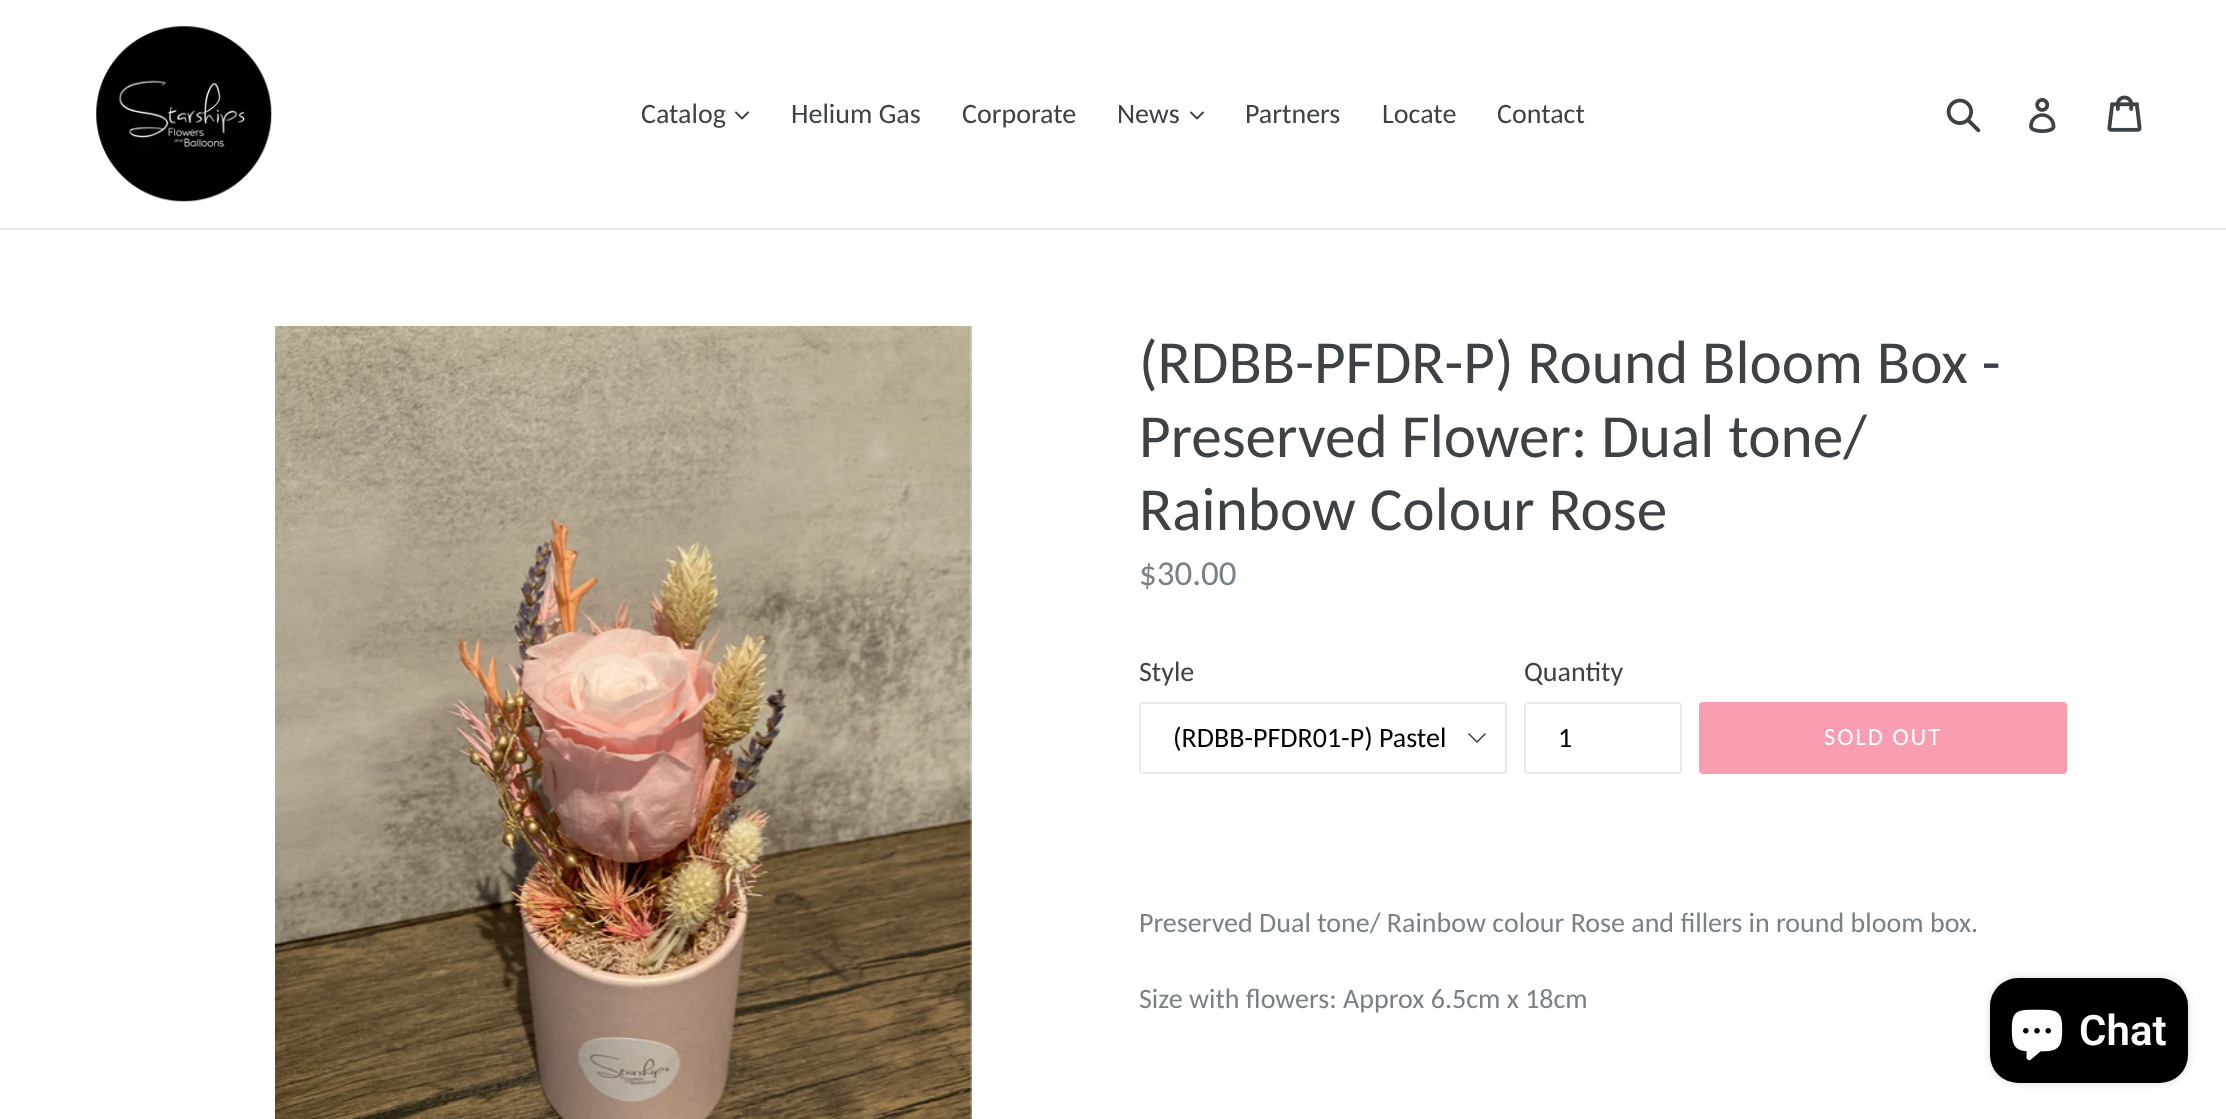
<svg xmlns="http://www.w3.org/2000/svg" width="2226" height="1119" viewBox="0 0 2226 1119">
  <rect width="100%" height="100%" fill="rgb(255,255,255)"/>
  <rect x="0" y="228" width="2226" height="2" fill="rgb(232,233,235)"/>
  <image x="96" y="26" width="176" height="176" href="pic1.png"/>
  <text x="641" y="123" font-family="Carlito" font-size="28" fill="rgb(61,66,70)">Catalog</text>
  <image x="735" y="111" width="14" height="9" href="pic2.png"/>
  <g font-family="Carlito" font-size="28" fill="rgb(61,66,70)">
    <text x="791" y="123">Helium Gas</text>
    <text x="962" y="123">Corporate</text>
    <text x="1117" y="123">News</text>
  </g>
  <image x="1190" y="111" width="14" height="9" href="pic2.png"/>
  <g font-family="Carlito" font-size="28" fill="rgb(61,66,70)">
    <text x="1245" y="123">Partners</text>
    <text x="1382" y="123">Locate</text>
    <text x="1497" y="123">Contact</text>
  </g>
  <image x="1946" y="98" width="35" height="35" href="pic3.png"/>
  <image x="2029" y="98" width="27" height="35" href="pic4.png"/>
  <image x="2107" y="95" width="35" height="37" href="pic5.png"/>
  <image x="275" y="326" width="697" height="793" href="pic6.png"/>
  <g font-family="Carlito" font-size="61.25" fill="rgb(61,66,70)">
    <text>
      <tspan x="1139" y="383">(RDBB-PFDR-P) Round Bloom Box -</tspan>
      <tspan x="1139" y="457">Preserved Flower: Dual tone/</tspan>
      <tspan x="1139" y="530">Rainbow Colour Rose</tspan>
    </text>
  </g>
  <text x="1139" y="585" font-family="Carlito" font-size="35" fill="rgb(120,129,136)">$30.00</text>
  <text x="1139" y="681" font-family="Carlito" font-size="28" fill="rgb(61,66,70)">Style</text>
  <path d="M1477 743L1468 734L1469 733L1477 741L1485 733L1486 734Z" fill="rgb(61,66,70)"/>
  <rect x="1140" y="703" width="366" height="70" rx="3" fill="none" stroke="rgb(232,233,235)" stroke-width="2"/>
  <text x="1173" y="747" font-family="Carlito" font-size="28" fill="rgb(0,0,0)">(RDBB-PFDR01-P) Pastel</text>
  <text x="1524" y="681" font-family="Carlito" font-size="28" fill="rgb(61,66,70)">Quantity</text>
  <rect x="1525" y="703" width="156" height="70" rx="3" fill="none" stroke="rgb(232,233,235)" stroke-width="2"/>
  <text x="1558" y="747" font-family="Carlito" font-size="28" fill="rgb(0,0,0)">1</text>
  <rect x="1699" y="702" width="368" height="72" rx="4" fill="rgb(249,157,176)"/>
  <text x="1824" y="745" font-family="Carlito" font-size="24.5" letter-spacing="2" fill="rgb(255,255,255)">SOLD OUT</text>
  <g font-family="Carlito" font-size="28" fill="rgb(120,129,136)">
    <text x="1139" y="932">Preserved Dual tone/ Rainbow colour Rose and fillers in round bloom box.</text>
    <text x="1139" y="1008">Size with flowers: Approx 6.5cm x 18cm</text>
  </g>
  <rect x="1990" y="978" width="198" height="105" rx="28" fill="rgba(0,0,0,0.15)" filter="blur(4.5px)"/>
  <rect x="1990" y="978" width="198" height="105" rx="28" fill="rgb(0,0,0)"/>
  <image x="2011" y="1009" width="52" height="52" href="pic7.png"/>
  <text x="2079" y="1045" font-family="Roboto" font-size="42" font-weight="600" fill="rgb(255,255,255)">Chat</text>
</svg>
